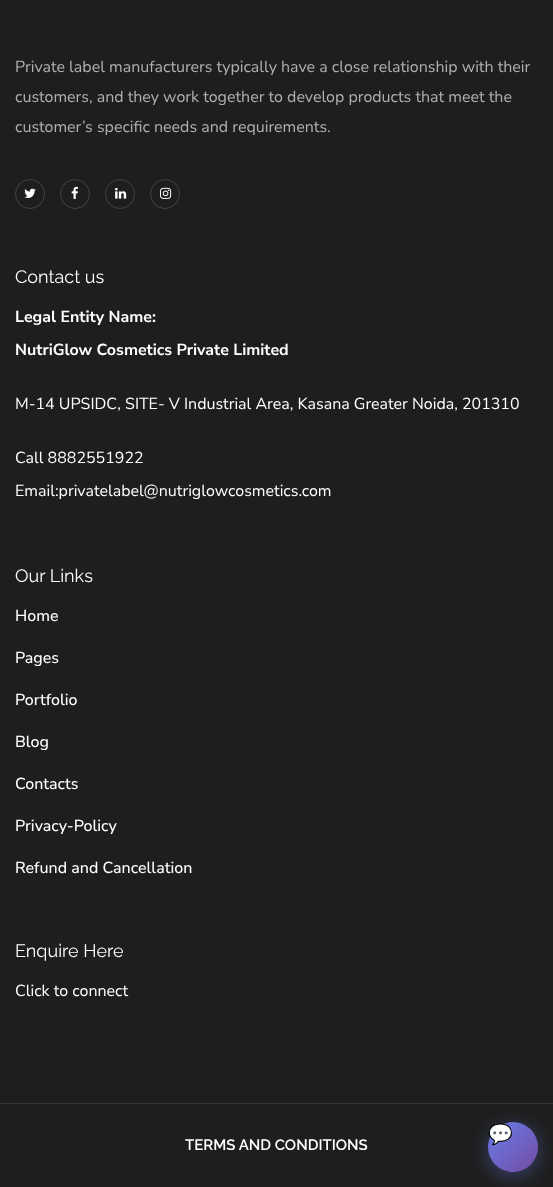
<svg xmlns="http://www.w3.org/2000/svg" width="553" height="1187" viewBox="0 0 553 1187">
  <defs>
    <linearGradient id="g1" gradientUnits="userSpaceOnUse" x1="488" y1="1122" x2="538" y2="1172"><stop offset="0" stop-color="rgb(102,126,234)"/><stop offset="1" stop-color="rgb(118,75,162)"/></linearGradient>
  </defs>
  <rect width="100%" height="100%" fill="rgb(30,30,30)"/>
  <g font-family="Nunito Sans" font-size="16" fill="rgb(177,176,176)">
    <text>
      <tspan x="15" y="72">Private label manufacturers typically have a close relationship with their</tspan>
      <tspan x="15" y="102">customers, and they work together to develop products that meet the</tspan>
      <tspan x="15" y="132">customer’s specific needs and requirements.</tspan>
    </text>
  </g>
  <circle cx="30" cy="194" r="14.5" fill="none" stroke="rgb(68,68,68)"/>
  <image x="24" y="188" width="12" height="10" href="pic1.png"/>
  <circle cx="75" cy="194" r="14.5" fill="none" stroke="rgb(68,68,68)"/>
  <image x="71" y="186" width="7" height="13" href="pic2.png"/>
  <circle cx="120" cy="194" r="14.5" fill="none" stroke="rgb(68,68,68)"/>
  <image x="115" y="187" width="12" height="12" href="pic3.png"/>
  <circle cx="165" cy="194" r="14.5" fill="none" stroke="rgb(68,68,68)"/>
  <image x="160" y="187" width="12" height="12" href="pic4.png"/>
  <text x="15" y="283" font-family="Raleway" font-size="18" fill="rgb(255,255,255)">Contact us</text>
  <g font-family="Nunito Sans" font-size="16" font-weight="bold" fill="rgb(255,255,255)">
    <text x="15" y="322">Legal Entity Name:</text>
    <text x="15" y="355">NutriGlow Cosmetics Private Limited</text>
  </g>
  <g font-family="Nunito Sans" font-size="16" fill="rgb(255,255,255)">
    <text x="15" y="409">M-14 UPSIDC, SITE- V Industrial Area, Kasana Greater Noida, 201310</text>
    <text x="15" y="463">Call 8882551922</text>
    <text x="15" y="496">Email:privatelabel@nutriglowcosmetics.com</text>
  </g>
  <text x="15" y="582" font-family="Raleway" font-size="18" fill="rgb(255,255,255)">Our Links</text>
  <g font-family="Nunito Sans" font-size="16" font-weight="500" fill="rgb(255,255,255)">
    <text x="15" y="621">Home</text>
    <text x="15" y="663">Pages</text>
    <text x="15" y="705">Portfolio</text>
    <text x="15" y="747">Blog</text>
    <text x="15" y="789">Contacts</text>
    <text x="15" y="831">Privacy-Policy</text>
    <text x="15" y="873">Refund and Cancellation</text>
  </g>
  <text x="15" y="957" font-family="Raleway" font-size="18" fill="rgb(255,255,255)">Enquire Here</text>
  <text x="15" y="996" font-family="Nunito Sans" font-size="16" fill="rgb(255,255,255)">Click to connect</text>
  <rect x="0" y="1103" width="553" height="1" fill="rgb(53,53,53)"/>
  <text x="185" y="1150" font-family="Raleway" font-size="15" font-weight="600" fill="rgb(255,255,255)">TERMS AND CONDITIONS</text>
  <rect x="488" y="1126" width="50" height="50" rx="25" fill="rgba(102,126,234,0.4)" filter="blur(10px)"/>
  <circle cx="513" cy="1147" r="25" fill="url(#g1)"/>
  <text x="488" y="1141" font-family="Noto Color Emoji" font-size="20" fill="rgb(255,255,255)">💬</text>
</svg>
